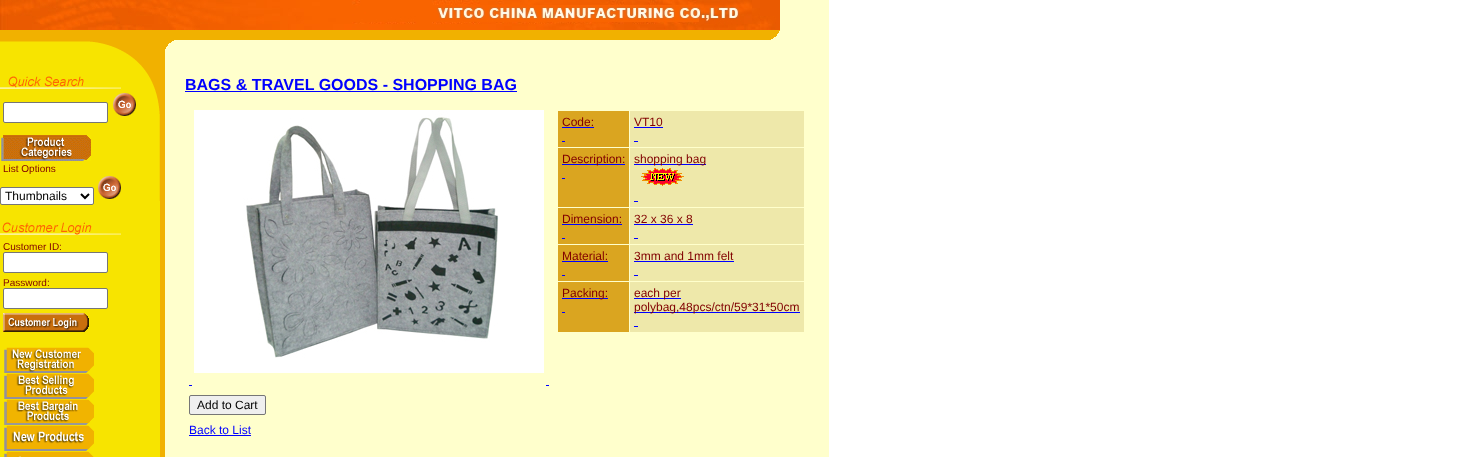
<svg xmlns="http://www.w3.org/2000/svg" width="1472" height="457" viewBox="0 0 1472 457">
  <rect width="100%" height="100%" fill="rgb(255,255,255)"/>
  <rect x="165" y="0" width="664" height="457" fill="rgb(255,255,204)"/>
  <image x="0" y="0" width="780" height="30" href="pic1.png"/>
  <rect x="0" y="71" width="160" height="386" fill="rgb(247,228,0)"/>
  <image x="0" y="30" width="160" height="41" href="pic2.png"/>
  <image x="145" y="71" width="15" height="130" href="pic3.png"/>
  <image x="0" y="76" width="121" height="13" href="pic4.png"/>
  <rect x="3.5" y="102.5" width="104" height="20" rx="1.5" fill="rgb(255,255,255)" stroke="rgb(118,118,118)"/>
  <image x="113" y="93" width="23" height="23" href="pic5.png"/>
  <image x="1" y="135" width="90" height="26" href="pic6.png"/>
  <text x="3" y="172" font-family="Liberation Sans" font-size="10" fill="rgb(128,0,0)">List Options</text>
  <rect x="0.5" y="187.5" width="93" height="17" rx="1.5" fill="rgb(255,255,255)" stroke="rgb(118,118,118)"/>
  <path d="M81 194L85 198L89 194" fill="none" stroke="rgb(0,0,0)" stroke-width="2"/>
  <text x="5" y="200" font-family="Liberation Sans" font-size="12" fill="rgb(0,0,0)">Thumbnails</text>
  <image x="98" y="176" width="23" height="23" href="pic5.png"/>
  <image x="0" y="222" width="121" height="13" href="pic7.png"/>
  <text x="3" y="250" font-family="Liberation Sans" font-size="10" fill="rgb(128,0,0)">Customer ID:</text>
  <rect x="3.5" y="252.5" width="104" height="20" rx="1.5" fill="rgb(255,255,255)" stroke="rgb(118,118,118)"/>
  <text x="3" y="286" font-family="Liberation Sans" font-size="10" fill="rgb(128,0,0)">Password:</text>
  <rect x="3.5" y="288.5" width="104" height="20" rx="1.5" fill="rgb(255,255,255)" stroke="rgb(118,118,118)"/>
  <image x="3" y="313" width="86" height="19" href="pic8.png"/>
  <image x="4" y="347" width="90" height="26" href="pic9.png"/>
  <image x="4" y="373" width="90" height="26" href="pic10.png"/>
  <image x="4" y="399" width="90" height="26" href="pic11.png"/>
  <image x="4" y="425" width="90" height="26" href="pic12.png"/>
  <image x="4" y="451" width="90" height="6" href="pic13.png"/>
  <rect x="160" y="30" width="5" height="427" fill="rgb(241,177,0)"/>
  <image x="165" y="30" width="615" height="19" href="pic14.png"/>
  <text x="185" y="90" font-family="Liberation Sans" font-size="16" font-weight="bold" fill="rgb(0,0,255)">BAGS &amp; TRAVEL GOODS - SHOPPING BAG</text>
  <rect x="185" y="91" width="332" height="1" fill="rgb(0,0,255)"/>
  <image x="194" y="110" width="350" height="263" href="pic15.png"/>
  <rect x="189" y="385" width="3" height="1" fill="rgb(0,0,255)"/>
  <rect x="546" y="385" width="3" height="1" fill="rgb(0,0,255)"/>
  <rect x="558" y="111" width="71" height="36" fill="rgb(218,165,32)"/>
  <text x="562" y="126" font-family="Liberation Sans" font-size="12" fill="rgb(128,0,0)">Code:</text>
  <rect x="562" y="127" width="32" height="1" fill="rgb(0,0,255)"/>
  <rect x="562" y="141" width="3" height="1" fill="rgb(0,0,255)"/>
  <rect x="630" y="111" width="174" height="36" fill="rgb(238,232,170)"/>
  <text x="634" y="126" font-family="Liberation Sans" font-size="12" fill="rgb(128,0,0)">VT10</text>
  <rect x="634" y="127" width="29" height="1" fill="rgb(0,0,255)"/>
  <rect x="634" y="141" width="4" height="1" fill="rgb(0,0,255)"/>
  <rect x="558" y="148" width="71" height="59" fill="rgb(218,165,32)"/>
  <rect x="562" y="164" width="63" height="1" fill="rgb(0,0,255)"/>
  <text x="562" y="163" font-family="Liberation Sans" font-size="12" fill="rgb(128,0,0)">Description:</text>
  <rect x="562" y="178" width="3" height="1" fill="rgb(0,0,255)"/>
  <rect x="630" y="148" width="174" height="59" fill="rgb(238,232,170)"/>
  <rect x="634" y="164" width="72" height="1" fill="rgb(0,0,255)"/>
  <text x="634" y="163" font-family="Liberation Sans" font-size="12" fill="rgb(128,0,0)">shopping bag</text>
  <image x="641" y="168" width="43" height="18" href="pic16.png"/>
  <rect x="634" y="201" width="4" height="1" fill="rgb(0,0,255)"/>
  <rect x="558" y="208" width="71" height="36" fill="rgb(218,165,32)"/>
  <text x="562" y="223" font-family="Liberation Sans" font-size="12" fill="rgb(128,0,0)">Dimension:</text>
  <rect x="562" y="224" width="60" height="1" fill="rgb(0,0,255)"/>
  <rect x="562" y="238" width="3" height="1" fill="rgb(0,0,255)"/>
  <rect x="630" y="208" width="174" height="36" fill="rgb(238,232,170)"/>
  <text x="634" y="223" font-family="Liberation Sans" font-size="12" fill="rgb(128,0,0)">32 x 36 x 8</text>
  <rect x="634" y="224" width="59" height="1" fill="rgb(0,0,255)"/>
  <rect x="634" y="238" width="4" height="1" fill="rgb(0,0,255)"/>
  <rect x="558" y="245" width="71" height="36" fill="rgb(218,165,32)"/>
  <text x="562" y="260" font-family="Liberation Sans" font-size="12" fill="rgb(128,0,0)">Material:</text>
  <rect x="562" y="261" width="46" height="1" fill="rgb(0,0,255)"/>
  <rect x="562" y="275" width="3" height="1" fill="rgb(0,0,255)"/>
  <rect x="630" y="245" width="174" height="36" fill="rgb(238,232,170)"/>
  <text x="634" y="260" font-family="Liberation Sans" font-size="12" fill="rgb(128,0,0)">3mm and 1mm felt</text>
  <rect x="634" y="261" width="100" height="1" fill="rgb(0,0,255)"/>
  <rect x="634" y="275" width="4" height="1" fill="rgb(0,0,255)"/>
  <rect x="558" y="282" width="71" height="50" fill="rgb(218,165,32)"/>
  <rect x="562" y="298" width="46" height="1" fill="rgb(0,0,255)"/>
  <text x="562" y="297" font-family="Liberation Sans" font-size="12" fill="rgb(128,0,0)">Packing:</text>
  <rect x="562" y="312" width="3" height="1" fill="rgb(0,0,255)"/>
  <rect x="630" y="282" width="174" height="50" fill="rgb(238,232,170)"/>
  <rect x="634" y="298" width="47" height="1" fill="rgb(0,0,255)"/>
  <text x="634" y="297" font-family="Liberation Sans" font-size="12" fill="rgb(128,0,0)">each per</text>
  <rect x="634" y="312" width="166" height="1" fill="rgb(0,0,255)"/>
  <text x="634" y="311" font-family="Liberation Sans" font-size="12" fill="rgb(128,0,0)">polybag,48pcs/ctn/59*31*50cm</text>
  <rect x="634" y="326" width="4" height="1" fill="rgb(0,0,255)"/>
  <rect x="189.5" y="395.5" width="76" height="19" rx="1.5" fill="rgb(239,239,239)" stroke="rgb(118,118,118)"/>
  <text x="197" y="409" font-family="Liberation Sans" font-size="12" fill="rgb(0,0,0)">Add to Cart</text>
  <text x="189" y="434" font-family="Liberation Sans" font-size="12" fill="rgb(0,0,255)">Back to List</text>
  <rect x="189" y="435" width="62" height="1" fill="rgb(0,0,255)"/>
</svg>
